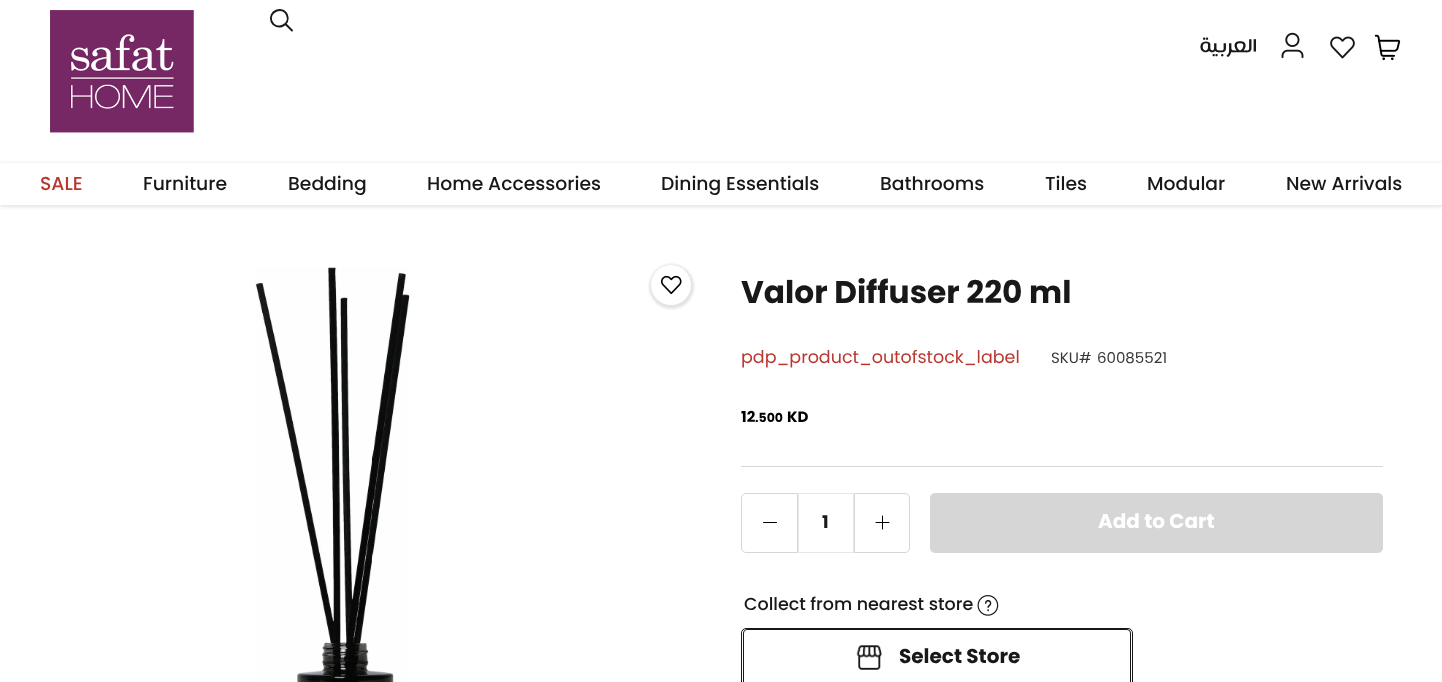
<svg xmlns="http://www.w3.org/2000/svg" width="1442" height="682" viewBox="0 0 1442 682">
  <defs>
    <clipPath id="clip1"><path d="M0 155H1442V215H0ZM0 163H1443V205H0Z" clip-rule="evenodd"/></clipPath>
  </defs>
  <rect width="100%" height="100%" fill="rgb(255,255,255)"/>
  <image x="50" y="10" width="144" height="123" href="pic1.png"/>
  <path d="M271.5 21.5C276 31.5 291.5 25 287 15C283 5 267.5 11.5 271.5 21.5ZM285.5 24L292 30.5" fill="none" stroke="rgb(24,24,24)" stroke-width="1.9" stroke-linecap="round" stroke-linejoin="round"/>
  <text x="1257" y="54" font-family="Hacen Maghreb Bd" font-size="22.5" direction="rtl" fill="rgb(24,24,24)">العربية</text>
  <image x="1281" y="32" width="23" height="27" href="pic2.png"/>
  <image x="1330" y="36" width="25" height="23" href="pic3.png"/>
  <image x="1374" y="34" width="27" height="27" href="pic4.png"/>
  <g clip-path="url(#clip1)">
    <rect x="0" y="164" width="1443" height="42" fill="rgba(0,0,0,0.15)" filter="blur(2.5px)"/>
  </g>
  <text x="40" y="190" font-family="Poppins" font-size="18.75" font-weight="500" fill="rgb(184,56,48)">SALE</text>
  <g font-family="Poppins" font-size="18.75" font-weight="500" fill="rgb(24,24,24)">
    <text x="143" y="190">Furniture</text>
    <text x="288" y="190">Bedding</text>
    <text x="427" y="190">Home Accessories</text>
    <text x="661" y="190">Dining Essentials</text>
    <text x="880" y="190">Bathrooms</text>
    <text x="1045" y="190">Tiles</text>
    <text x="1147" y="190">Modular</text>
    <text x="1286" y="190">New Arrivals</text>
  </g>
  <image x="255" y="267" width="155" height="415" href="pic5.png"/>
  <rect x="649" y="264" width="45" height="45" rx="22.5" fill="rgba(0,0,0,0.11)" filter="blur(1px)"/>
  <circle cx="671" cy="285" r="20" fill="rgb(255,255,255)"/>
  <image x="661" y="275" width="21" height="20" href="pic6.png"/>
  <text x="741" y="303" font-family="Poppins" font-size="31.25" font-weight="bold" fill="rgb(24,24,24)">Valor Diffuser 220 ml</text>
  <text x="741" y="363" font-family="Poppins" font-size="17.5" fill="rgb(184,56,48)">pdp_product_outofstock_label</text>
  <g font-family="Poppins" font-size="15" fill="rgb(55,55,55)">
    <text x="1051" y="363">SKU#</text>
    <text x="1097" y="363">60085521</text>
  </g>
  <text x="741" y="422" font-family="Poppins" font-size="15" font-weight="bold" fill="rgb(0,0,0)">12</text>
  <text x="755" y="422" font-family="Poppins" font-size="12.5" font-weight="bold" fill="rgb(0,0,0)">.500</text>
  <text x="787" y="422" font-family="Poppins" font-size="15" font-weight="bold" fill="rgb(0,0,0)">KD</text>
  <rect x="741" y="466" width="642" height="1" fill="rgb(214,214,214)"/>
  <path d="M746 493.5H797.5V552.5H746C743.5 552.5 741.5 550.5 741.5 548V498C741.5 495.5 743.5 493.5 746 493.5Z" fill="none" stroke="rgb(214,214,214)"/>
  <path d="M763.5 522.5H776.5" fill="none" stroke="rgb(0,0,0)" stroke-linecap="round" stroke-linejoin="round"/>
  <rect x="798.5" y="493.5" width="55" height="59" fill="none" stroke="rgb(231,231,231)"/>
  <text x="822" y="528" font-family="Poppins" font-size="17.5" font-weight="bold" fill="rgb(24,24,24)">1</text>
  <path d="M854.5 493.5H905C907.5 493.5 909.5 495.5 909.5 498V548C909.5 550.5 907.5 552.5 905 552.5H854.5Z" fill="none" stroke="rgb(214,214,214)"/>
  <path d="M876 522.5H889M882.5 516V529" fill="none" stroke="rgb(0,0,0)" stroke-linecap="round" stroke-linejoin="round"/>
  <rect x="930" y="493" width="453" height="60" rx="5" fill="rgb(214,214,214)"/>
  <text x="1098" y="528" font-family="Poppins" font-size="20" font-weight="bold" fill="rgb(255,255,255)">Add to Cart</text>
  <text x="744" y="610" font-family="Poppins" font-size="17.5" font-weight="500" fill="rgb(24,24,24)">Collect from nearest store</text>
  <image x="977" y="595" width="22" height="21" href="pic7.png"/>
  <rect x="743.5" y="629.5" width="387" height="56" rx="3.5" fill="none" stroke="rgb(24,24,24)"/>
  <rect x="741.5" y="628.5" width="391" height="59" rx="4.5" fill="none" stroke="rgb(24,24,24)"/>
  <image x="856" y="645" width="26" height="25" href="pic8.png"/>
  <text x="899" y="663" font-family="Poppins" font-size="20" font-weight="bold" fill="rgb(24,24,24)">Select Store</text>
</svg>
